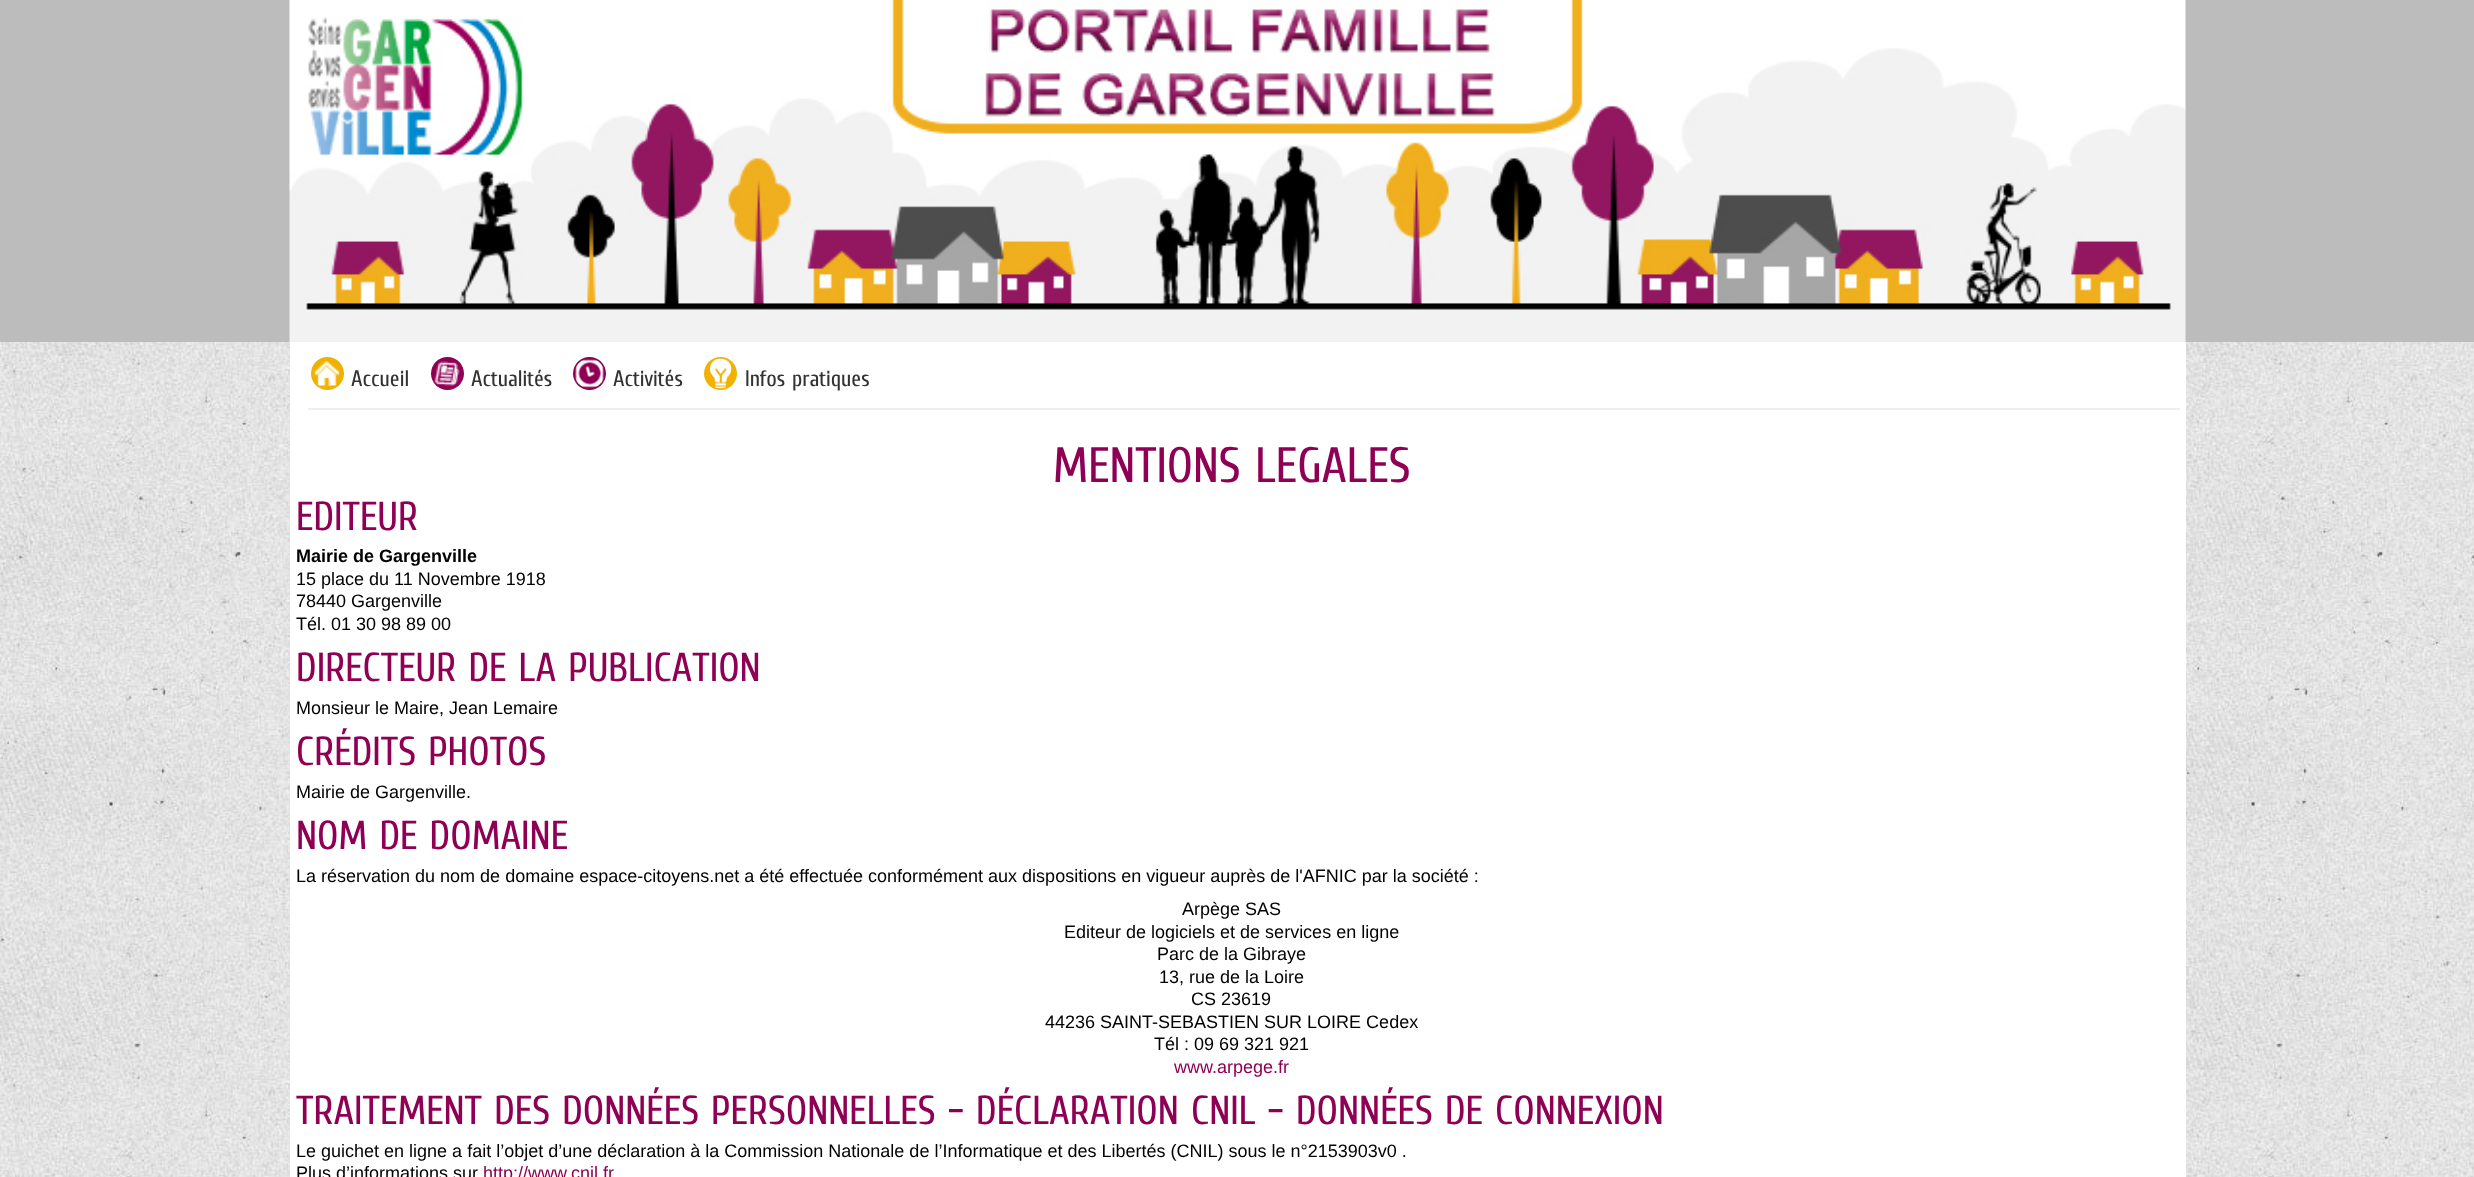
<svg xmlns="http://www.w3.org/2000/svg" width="2474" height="1177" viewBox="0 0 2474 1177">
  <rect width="100%" height="100%" fill="rgb(255,255,255)"/>
  <image x="0" y="342" width="2474" height="835" href="pic1.png"/>
  <rect x="0" y="0" width="2474" height="342" fill="rgb(188,188,188)"/>
  <image x="289" y="0" width="1897" height="342" href="pic2.png"/>
  <rect x="290" y="342" width="1896" height="835" fill="rgb(255,255,255)"/>
  <rect x="308" y="408" width="1872" height="2" fill="rgb(238,238,238)"/>
  <circle cx="327.5" cy="373.5" r="16.5" fill="rgb(241,177,0)"/>
  <image x="314" y="361" width="26" height="25" href="pic3.png"/>
  <text x="351" y="386" font-family="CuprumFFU" font-size="22.5" fill="rgb(51,51,51)">Accueil</text>
  <circle cx="447.5" cy="373.5" r="16.5" fill="rgb(143,0,85)"/>
  <image x="434" y="361" width="26" height="25" href="pic4.png"/>
  <text x="471" y="386" font-family="CuprumFFU" font-size="22.5" fill="rgb(51,51,51)">Actualités</text>
  <circle cx="589.5" cy="373.5" r="16.5" fill="rgb(143,0,85)"/>
  <image x="575" y="359" width="29" height="29" href="pic5.png"/>
  <text x="613" y="386" font-family="CuprumFFU" font-size="22.5" fill="rgb(51,51,51)">Activités</text>
  <circle cx="720.5" cy="373.5" r="16.5" fill="rgb(241,177,0)"/>
  <image x="710" y="358" width="22" height="31" href="pic6.png"/>
  <text x="745" y="386" font-family="CuprumFFU" font-size="22.5" fill="rgb(51,51,51)">Infos pratiques</text>
  <text x="1053" y="482" font-family="CuprumFFU" font-size="49.5" fill="rgb(143,0,85)">MENTIONS LEGALES</text>
  <text x="296" y="530" font-family="CuprumFFU" font-size="40.5" fill="rgb(143,0,85)">EDITEUR</text>
  <text x="296" y="562" font-family="Liberation Sans" font-size="18" font-weight="bold" fill="rgb(0,0,0)">Mairie de Gargenville</text>
  <g font-family="Liberation Sans" font-size="18" fill="rgb(0,0,0)">
    <text>
      <tspan x="296" y="585">15 place du 11 Novembre 1918</tspan>
      <tspan x="296" y="607">78440 Gargenville</tspan>
      <tspan x="296" y="630">Tél. 01 30 98 89 00</tspan>
    </text>
  </g>
  <text x="296" y="681" font-family="CuprumFFU" font-size="40.5" fill="rgb(143,0,85)">DIRECTEUR DE LA PUBLICATION</text>
  <text x="296" y="714" font-family="Liberation Sans" font-size="18" fill="rgb(0,0,0)">Monsieur le Maire, Jean Lemaire</text>
  <text x="296" y="765" font-family="CuprumFFU" font-size="40.5" fill="rgb(143,0,85)">CRÉDITS PHOTOS</text>
  <text x="296" y="798" font-family="Liberation Sans" font-size="18" fill="rgb(0,0,0)">Mairie de Gargenville.</text>
  <text x="296" y="849" font-family="CuprumFFU" font-size="40.5" fill="rgb(143,0,85)">NOM DE DOMAINE</text>
  <g font-family="Liberation Sans" font-size="18" fill="rgb(0,0,0)">
    <text x="296" y="882">La réservation du nom de domaine espace-citoyens.net a été effectuée conformément aux dispositions en vigueur auprès de l'AFNIC par la société :</text>
    <text x="1182" y="915">Arpège SAS</text>
    <text x="1064" y="938">Editeur de logiciels et de services en ligne</text>
    <text x="1157" y="960">Parc de la Gibraye</text>
    <text x="1159" y="983">13, rue de la Loire</text>
    <text x="1191" y="1005">CS 23619</text>
    <text x="1045" y="1028">44236 SAINT-SEBASTIEN SUR LOIRE Cedex</text>
    <text x="1154" y="1050">Tél : 09 69 321 921</text>
  </g>
  <text x="1174" y="1073" font-family="Liberation Sans" font-size="18" fill="rgb(143,0,85)">www.arpege.fr</text>
  <text x="296" y="1124" font-family="CuprumFFU" font-size="40.5" fill="rgb(143,0,85)">TRAITEMENT DES DONNÉES PERSONNELLES – DÉCLARATION CNIL – DONNÉES DE CONNEXION</text>
  <g font-family="Liberation Sans" font-size="18" fill="rgb(0,0,0)">
    <text>
      <tspan x="296" y="1157">Le guichet en ligne a fait l’objet d’une déclaration à la Commission Nationale de l’Informatique et des Libertés (CNIL) sous le n°2153903v0 .</tspan>
      <tspan x="296" y="1179">Plus d’informations sur</tspan>
    </text>
  </g>
  <text x="483" y="1179" font-family="Liberation Sans" font-size="18" fill="rgb(143,0,85)">http://www.cnil.fr</text>
</svg>
